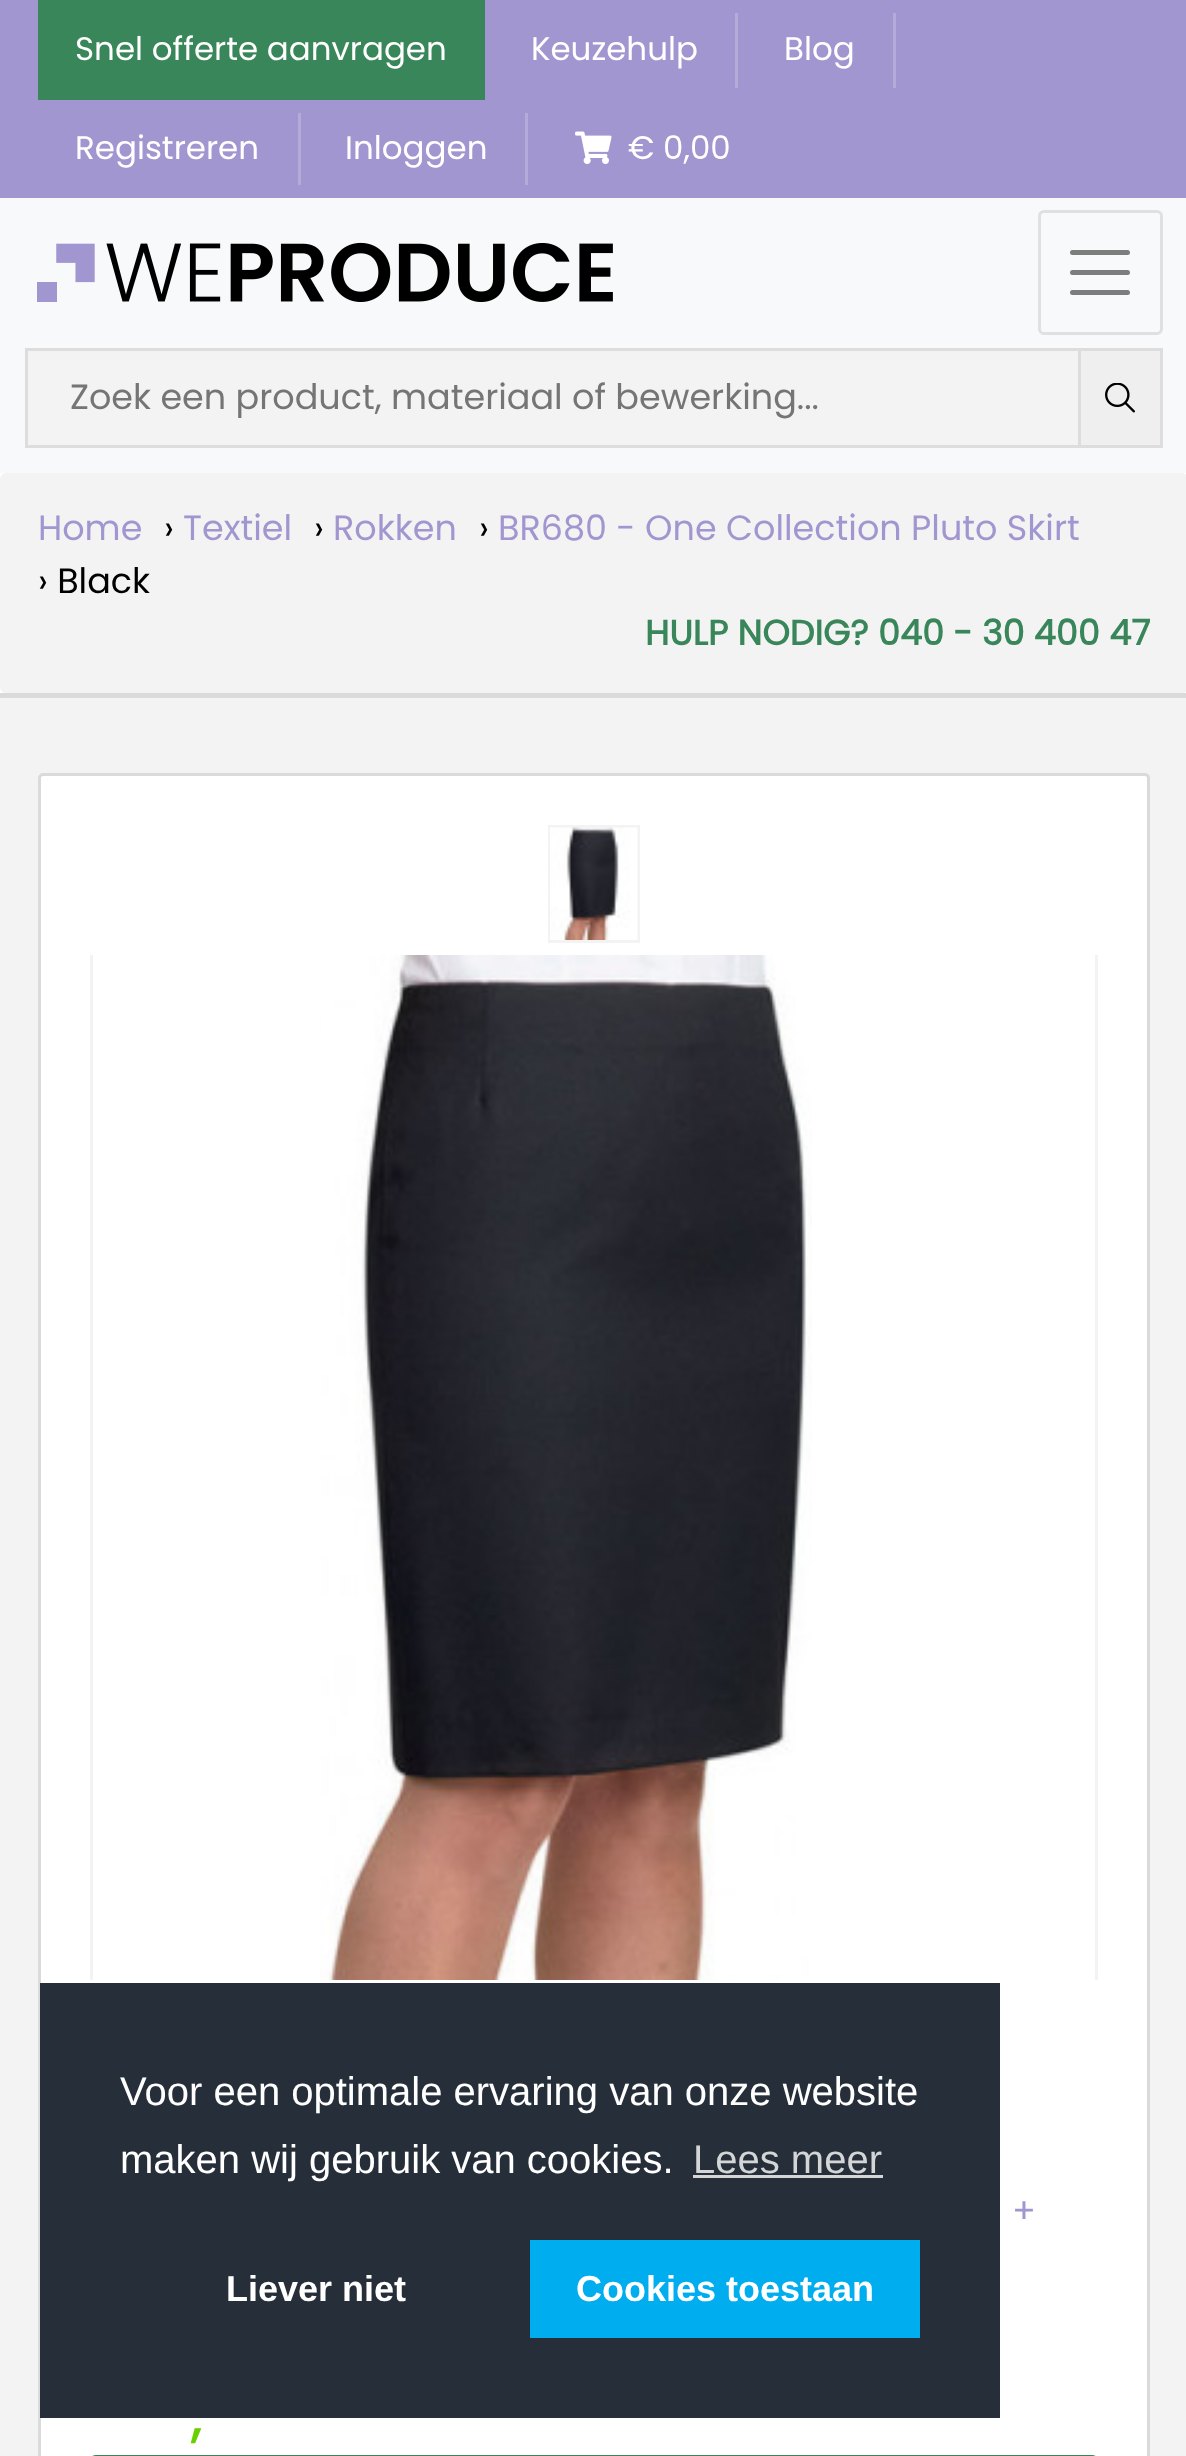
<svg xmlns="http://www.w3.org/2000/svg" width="1186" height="2456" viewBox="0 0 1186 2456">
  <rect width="100%" height="100%" fill="rgb(255,255,255)"/>
  <rect x="0" y="0" width="1186" height="198" fill="rgb(162,150,208)"/>
  <rect x="38" y="0" width="447" height="100" fill="rgb(56,134,89)"/>
  <text x="75" y="60" font-family="Poppins" font-size="32.5" fill="rgb(255,255,255)">Snel offerte aanvragen</text>
  <rect x="735" y="13" width="3" height="75" fill="rgb(181,171,217)"/>
  <text x="531" y="60" font-family="Poppins" font-size="32.5" fill="rgb(255,255,255)">Keuzehulp</text>
  <rect x="893" y="13" width="3" height="75" fill="rgb(181,171,217)"/>
  <text x="784" y="60" font-family="Poppins" font-size="32.5" fill="rgb(255,255,255)">Blog</text>
  <rect x="298" y="113" width="3" height="72" fill="rgb(181,171,217)"/>
  <text x="75" y="159" font-family="Poppins" font-size="32.5" fill="rgb(255,255,255)">Registreren</text>
  <rect x="525" y="113" width="3" height="72" fill="rgb(181,171,217)"/>
  <text x="345" y="159" font-family="Poppins" font-size="32.5" fill="rgb(255,255,255)">Inloggen</text>
  <image x="575" y="131" width="37" height="33" href="pic1.png"/>
  <text x="628" y="159" font-family="Poppins" font-size="32.5" fill="rgb(255,255,255)">€ 0,00</text>
  <rect x="0" y="198" width="1186" height="275" fill="rgb(248,249,250)"/>
  <image x="37" y="242" width="576" height="60" href="pic2.png"/>
  <rect x="1039.5" y="211.5" width="122" height="122" rx="4.5" fill="none" stroke="rgb(223,224,225)" stroke-width="3"/>
  <path d="M1072.5 252.5H1127.5M1072.5 272.5H1127.5M1072.5 292.5H1127.5" fill="none" stroke="rgb(124,125,125)" stroke-width="5" stroke-linecap="round"/>
  <rect x="28" y="351" width="1050" height="94" fill="rgb(243,243,243)"/>
  <rect x="25" y="348" width="1053" height="3" fill="rgb(221,221,221)"/>
  <rect x="25" y="445" width="1053" height="3" fill="rgb(221,221,221)"/>
  <rect x="25" y="348" width="3" height="100" fill="rgb(221,221,221)"/>
  <text x="70" y="409" font-family="Poppins" font-size="35" fill="rgb(117,117,117)">Zoek een product, materiaal of bewerking...</text>
  <rect x="1079.5" y="349.5" width="82" height="97" fill="rgb(239,239,239)" stroke="rgb(221,221,221)" stroke-width="3"/>
  <image x="1105" y="383" width="30" height="30" href="pic3.png"/>
  <rect x="0" y="473" width="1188" height="220" rx="6" fill="rgb(243,243,243)"/>
  <rect x="3" y="692" width="1182" height="1" fill="rgb(243,243,243)"/>
  <text x="38" y="540" font-family="Poppins" font-size="35" fill="rgb(162,150,208)">Home</text>
  <text x="164" y="540" font-family="Poppins" font-size="35" fill="rgb(0,0,0)">›</text>
  <text x="183" y="540" font-family="Poppins" font-size="35" fill="rgb(162,150,208)">Textiel</text>
  <text x="314" y="540" font-family="Poppins" font-size="35" fill="rgb(0,0,0)">›</text>
  <text x="333" y="540" font-family="Poppins" font-size="35" fill="rgb(162,150,208)">Rokken</text>
  <text x="479" y="540" font-family="Poppins" font-size="35" fill="rgb(0,0,0)">›</text>
  <text x="498" y="540" font-family="Poppins" font-size="35" fill="rgb(162,150,208)">BR680 - One Collection Pluto Skirt</text>
  <text x="38" y="593" font-family="Poppins" font-size="35" fill="rgb(0,0,0)">› Black</text>
  <text x="645" y="645" font-family="Poppins" font-size="35" font-weight="bold" fill="rgb(56,134,89)">HULP NODIG? 040 - 30 400 47</text>
  <rect x="0" y="693" width="1186" height="5" fill="rgb(218,218,218)"/>
  <rect x="0" y="698" width="1186" height="1758" fill="rgb(243,243,243)"/>
  <rect x="39.5" y="774.5" width="1109" height="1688" rx="3.5" fill="rgb(255,255,255)" stroke="rgb(218,218,218)" stroke-width="3"/>
  <rect x="40" y="1983" width="960" height="435" fill="rgb(37,46,57)"/>
  <g font-family="Liberation Sans" font-size="40" fill="rgb(255,255,255)">
    <text>
      <tspan x="120" y="2105">Voor een optimale ervaring van onze website</tspan>
      <tspan x="120" y="2173">maken wij gebruik van cookies.</tspan>
    </text>
  </g>
  <text x="693" y="2173" font-family="Liberation Sans" font-size="40" fill="rgb(211,213,215)">Lees meer</text>
  <rect x="693" y="2175" width="190" height="3" fill="rgb(211,213,215)"/>
  <text x="226" y="2301" font-family="Liberation Sans" font-size="36" font-weight="bold" fill="rgb(255,255,255)">Liever niet</text>
  <rect x="530" y="2240" width="390" height="98" fill="rgb(0,173,238)"/>
  <text x="576" y="2301" font-family="Liberation Sans" font-size="36" font-weight="bold" fill="rgb(255,255,255)">Cookies toestaan</text>
  <rect x="549.5" y="826.5" width="89" height="115" fill="none" stroke="rgb(243,243,243)" stroke-width="3"/>
  <image x="550" y="827" width="88" height="113" href="pic4.png"/>
  <rect x="1095" y="955" width="3" height="1025" fill="rgb(243,243,243)"/>
  <rect x="90" y="955" width="3" height="1025" fill="rgb(243,243,243)"/>
  <image x="320" y="955" width="492" height="1025" href="pic5.png"/>
  <text x="1012" y="2223" font-family="Poppins" font-size="35" fill="rgb(162,150,208)">+</text>
  <text x="191" y="2436" font-family="Poppins" font-size="50" font-weight="bold" fill="rgb(105,208,0)">,</text>
  <rect x="91.5" y="2456.5" width="1005" height="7" rx="4.5" fill="none" stroke="rgb(56,134,89)" stroke-width="3"/>
</svg>
